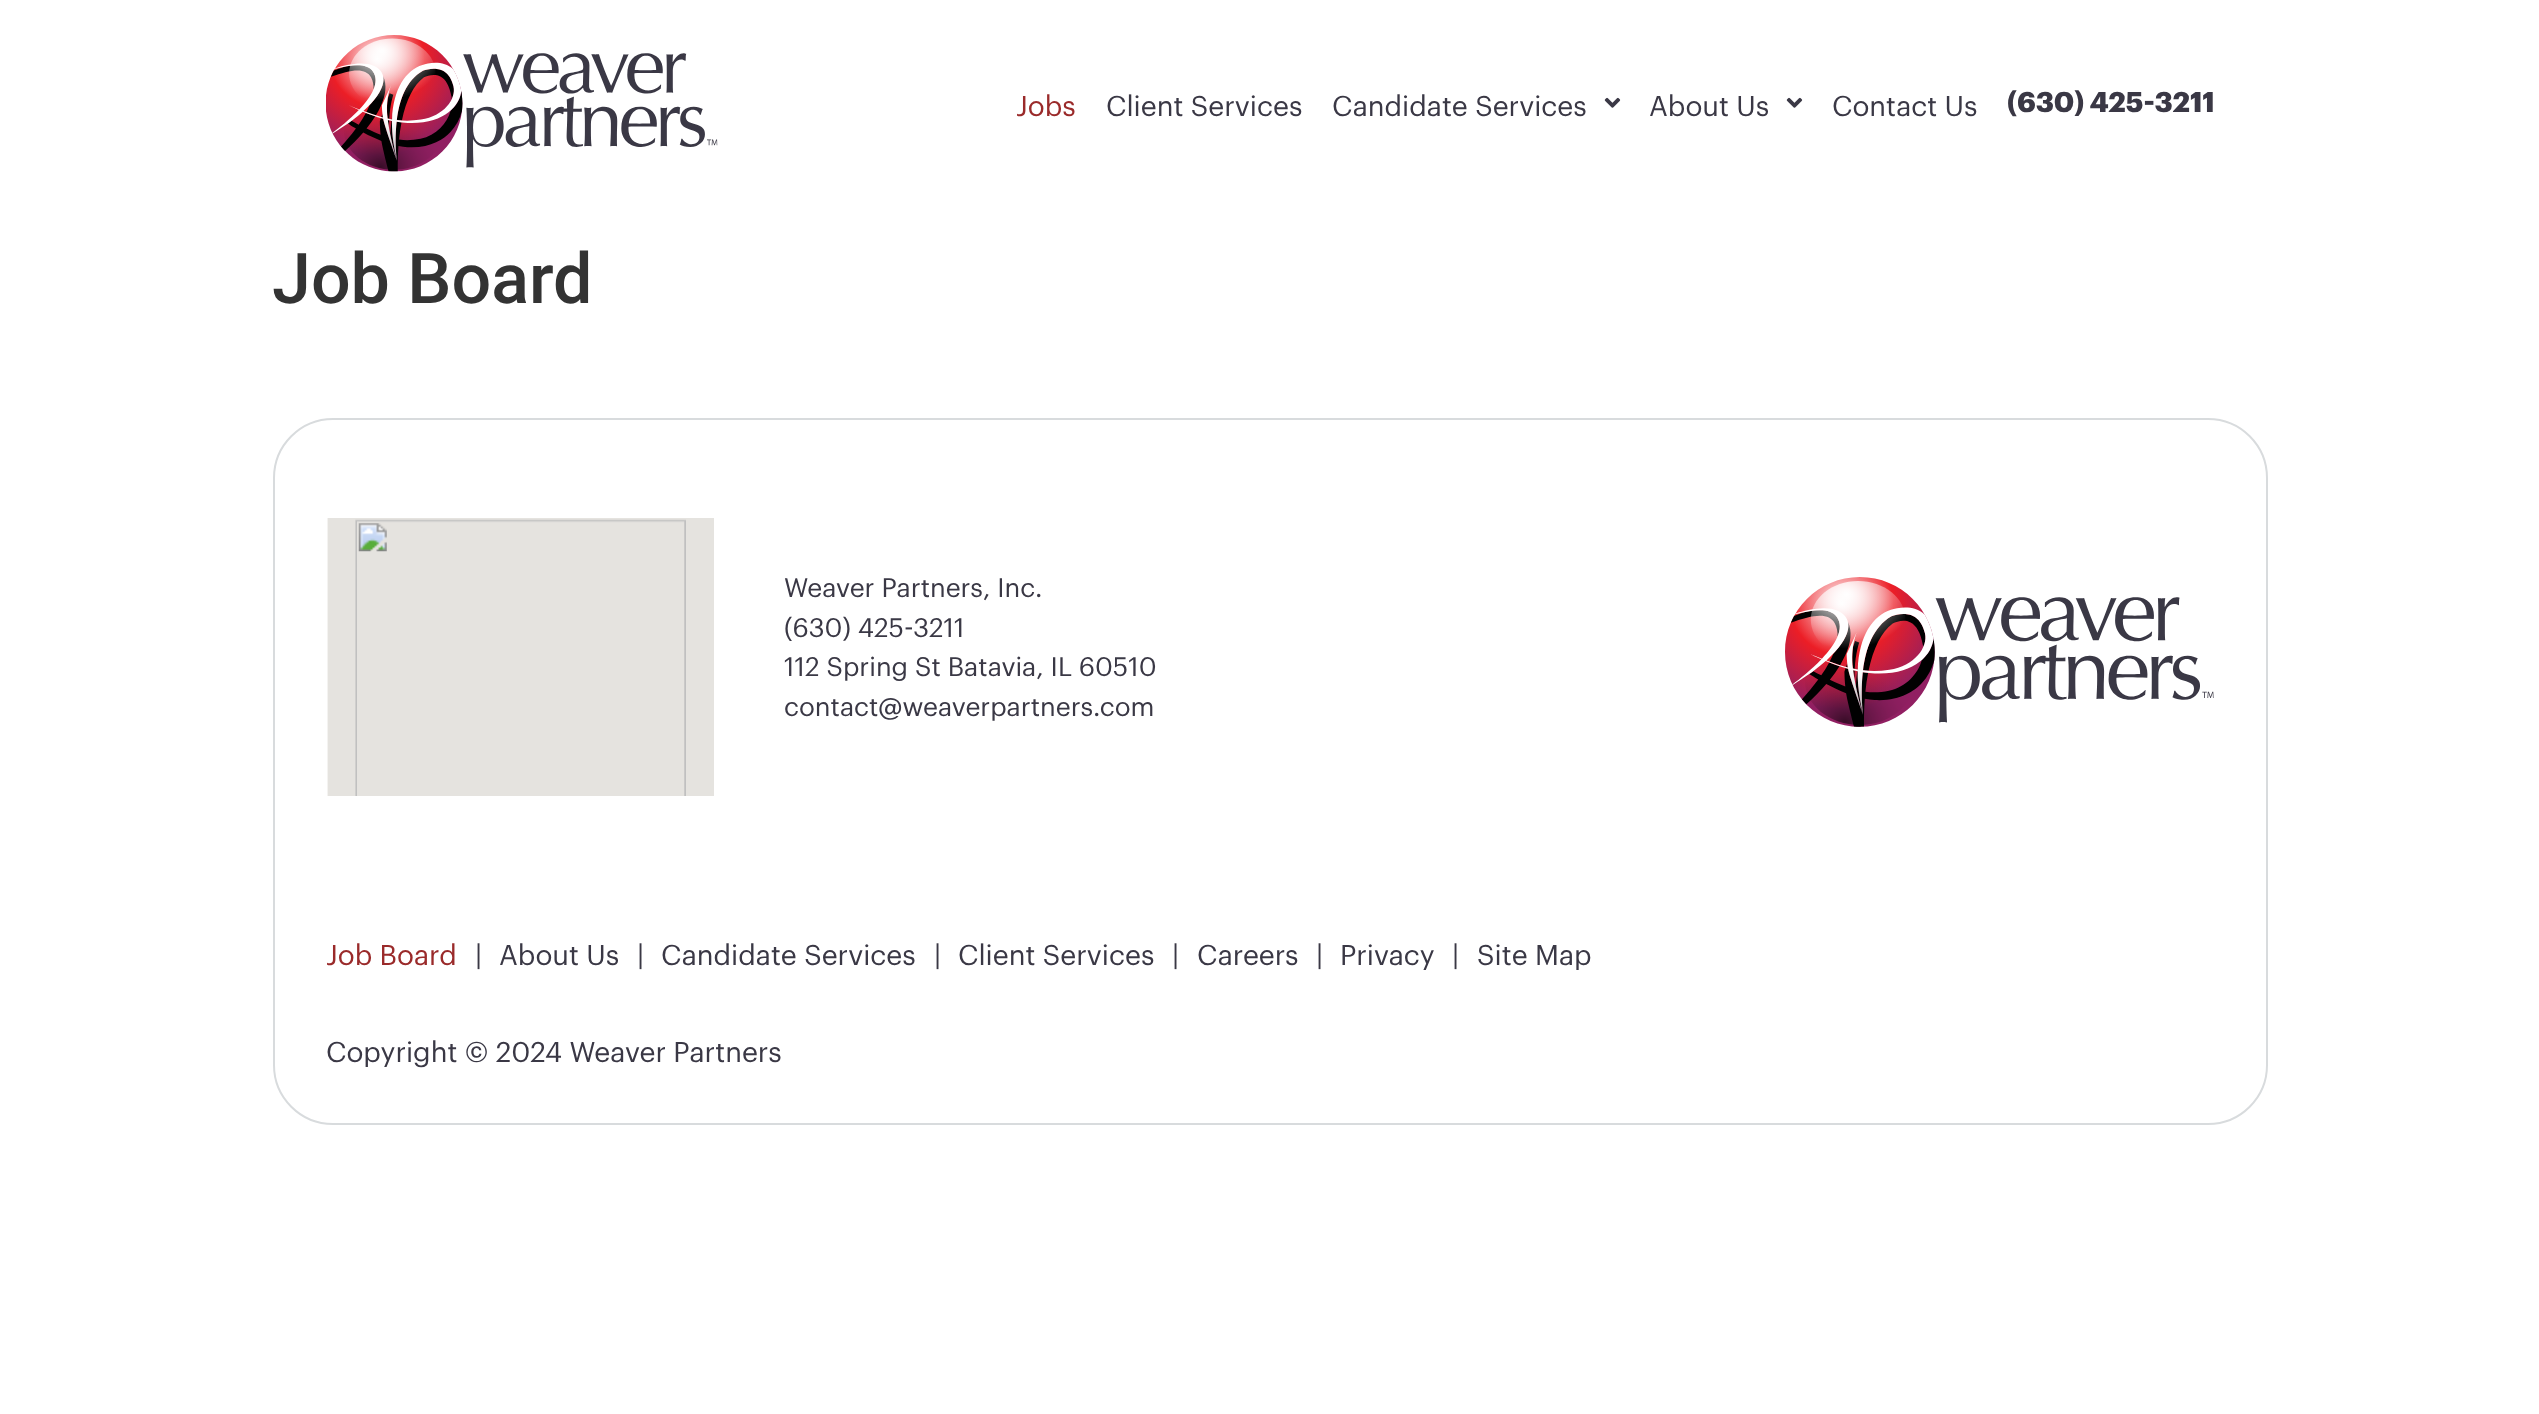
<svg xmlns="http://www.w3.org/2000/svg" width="2539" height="1414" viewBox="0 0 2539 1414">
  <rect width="100%" height="100%" fill="rgb(255,255,255)"/>
  <image x="326" y="35" width="392" height="137" href="pic1.png"/>
  <text x="1016" y="116" font-family="Graphik" font-size="28" fill="rgb(154,42,42)">Jobs</text>
  <g font-family="Graphik" font-size="28" fill="rgb(58,56,69)">
    <text x="1106" y="116">Client Services</text>
    <text x="1332" y="116">Candidate Services</text>
  </g>
  <image x="1604" y="97" width="17" height="11" href="pic2.png"/>
  <text x="1649" y="116" font-family="Graphik" font-size="28" fill="rgb(58,56,69)">About Us</text>
  <image x="1786" y="97" width="17" height="11" href="pic2.png"/>
  <text x="1832" y="116" font-family="Graphik" font-size="28" fill="rgb(58,56,69)">Contact Us</text>
  <text x="2007" y="112" font-family="Graphik" font-size="28" font-weight="bold" fill="rgb(58,56,69)">(630) 425-3211</text>
  <text x="272" y="303" font-family="Roboto" font-size="70" font-weight="500" fill="rgb(51,51,51)">Job Board</text>
  <rect x="274" y="419" width="1993" height="705" rx="59" fill="none" stroke="rgb(216,219,221)" stroke-width="2"/>
  <image x="327" y="518" width="387" height="278" href="pic3.png"/>
  <g font-family="Graphik" font-size="26.25" fill="rgb(58,56,69)">
    <text>
      <tspan x="784" y="597">Weaver Partners, Inc.</tspan>
      <tspan x="784" y="637">(630) 425-3211</tspan>
      <tspan x="784" y="676">112 Spring St Batavia, IL 60510</tspan>
      <tspan x="784" y="716">contact@weaverpartners.com</tspan>
    </text>
  </g>
  <image x="1785" y="577" width="429" height="150" href="pic4.png"/>
  <text x="326" y="965" font-family="Graphik" font-size="28" fill="rgb(154,42,42)">Job Board</text>
  <g font-family="Graphik" font-size="28" fill="rgb(58,56,69)">
    <text x="475" y="965">|</text>
    <text x="499" y="965">About Us</text>
    <text x="637" y="965">|</text>
    <text x="661" y="965">Candidate Services</text>
    <text x="934" y="965">|</text>
    <text x="958" y="965">Client Services</text>
    <text x="1172" y="965">|</text>
    <text x="1197" y="965">Careers</text>
    <text x="1316" y="965">|</text>
    <text x="1340" y="965">Privacy</text>
    <text x="1452" y="965">|</text>
    <text x="1477" y="965">Site Map</text>
    <text x="326" y="1062">Copyright © 2024 Weaver Partners</text>
  </g>
</svg>
